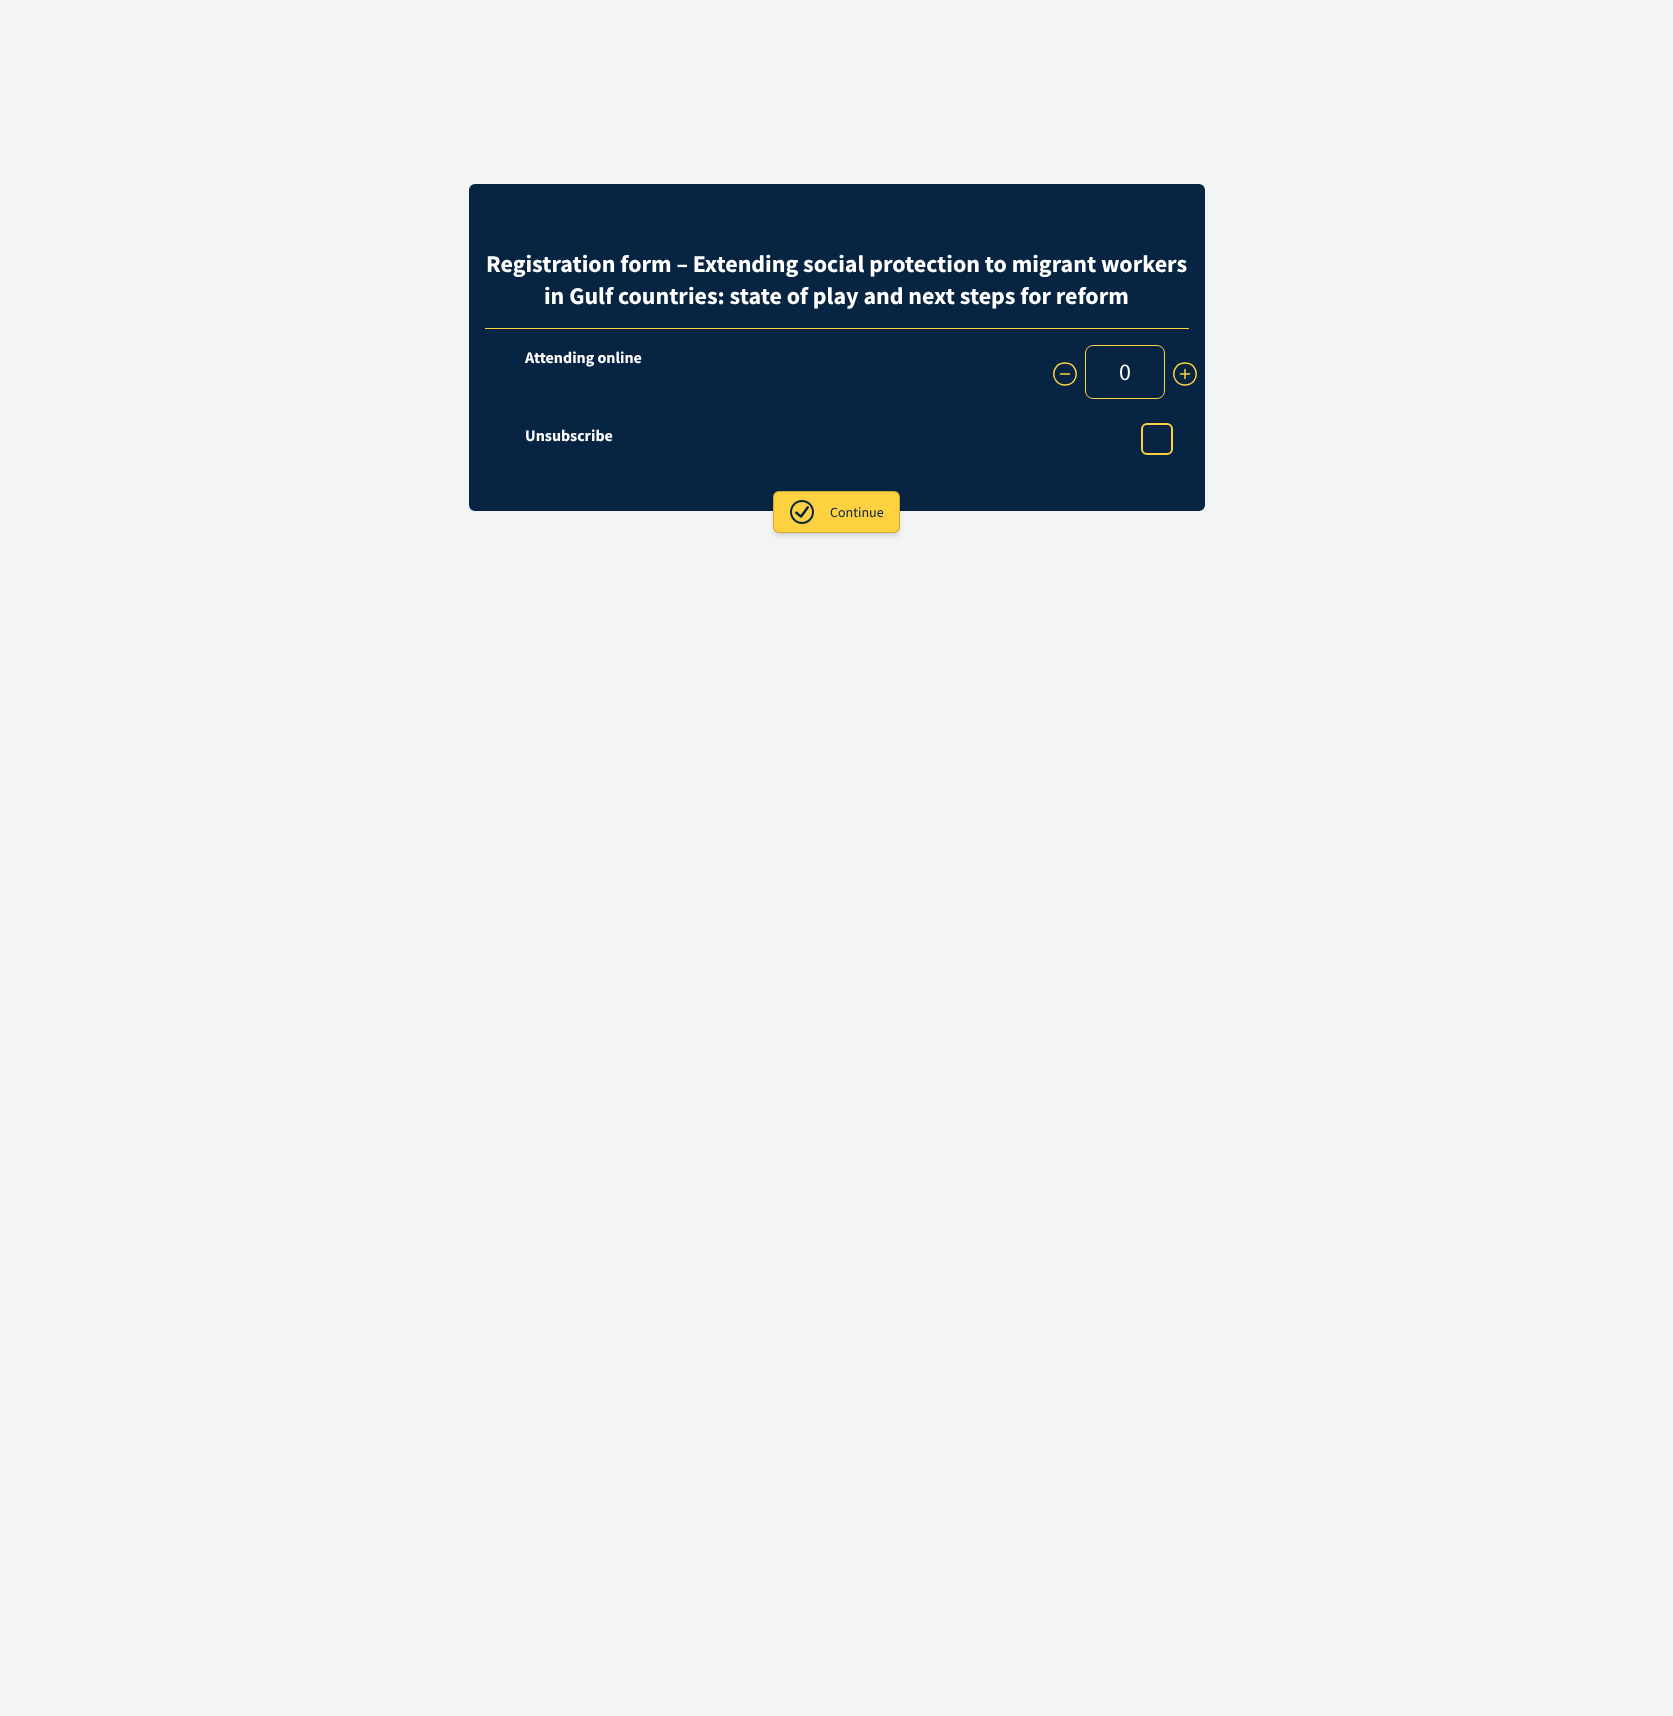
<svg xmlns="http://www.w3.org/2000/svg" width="1673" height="1716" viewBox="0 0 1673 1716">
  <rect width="100%" height="100%" fill="rgb(243,244,246)"/>
  <rect x="469" y="184" width="736" height="327" rx="6" fill="rgb(7,36,66)"/>
  <rect x="485" y="328" width="704" height="1" fill="rgb(254,209,65)"/>
  <g font-family="Source Sans Pro" font-size="24" font-weight="bold" fill="rgb(255,255,255)">
    <text x="486" y="272">Registration form – Extending social protection to migrant workers</text>
    <text x="544" y="304">in Gulf countries: state of play and next steps for reform</text>
  </g>
  <text x="525" y="363" font-family="Source Sans Pro" font-size="16" font-weight="bold" fill="rgb(255,255,255)">Attending online</text>
  <path d="M1060.5 374H1069.5M1065 363C1050 363 1050 385 1065 385C1080 385 1080 363 1065 363Z" fill="none" stroke="rgb(254,209,65)" stroke-width="1.5" stroke-linecap="round" stroke-linejoin="round"/>
  <rect x="1085.5" y="345.5" width="79" height="53" rx="7.5" fill="none" stroke="rgb(254,209,65)"/>
  <text x="1119" y="380" font-family="Source Sans Pro" font-size="24" fill="rgb(255,255,255)">0</text>
  <path d="M1185 369.5V378.5M1180.5 374H1189.5M1185 363C1170 363 1170 385 1185 385C1200 385 1200 363 1185 363Z" fill="none" stroke="rgb(254,209,65)" stroke-width="1.5" stroke-linecap="round" stroke-linejoin="round"/>
  <text x="525" y="441" font-family="Source Sans Pro" font-size="16" font-weight="bold" fill="rgb(255,255,255)">Unsubscribe</text>
  <rect x="1142" y="424" width="30" height="30" rx="5" fill="none" stroke="rgb(254,209,65)" stroke-width="2"/>
  <rect x="775" y="495" width="123" height="38" rx="4" fill="rgba(0,0,0,0.1)" filter="blur(2px)"/>
  <rect x="774" y="496" width="125" height="40" rx="5" fill="rgba(0,0,0,0.1)" filter="blur(3px)"/>
  <rect x="773" y="491" width="127" height="42" rx="6" fill="rgb(254,209,65)"/>
  <rect x="773.5" y="491.5" width="126" height="41" rx="5.5" fill="none" stroke="rgba(0,0,0,0.2)"/>
  <image x="790" y="500" width="24" height="24" href="pic1.png"/>
  <text x="830" y="517" font-family="Source Sans Pro" font-size="14" fill="rgb(7,36,66)">Continue</text>
</svg>
